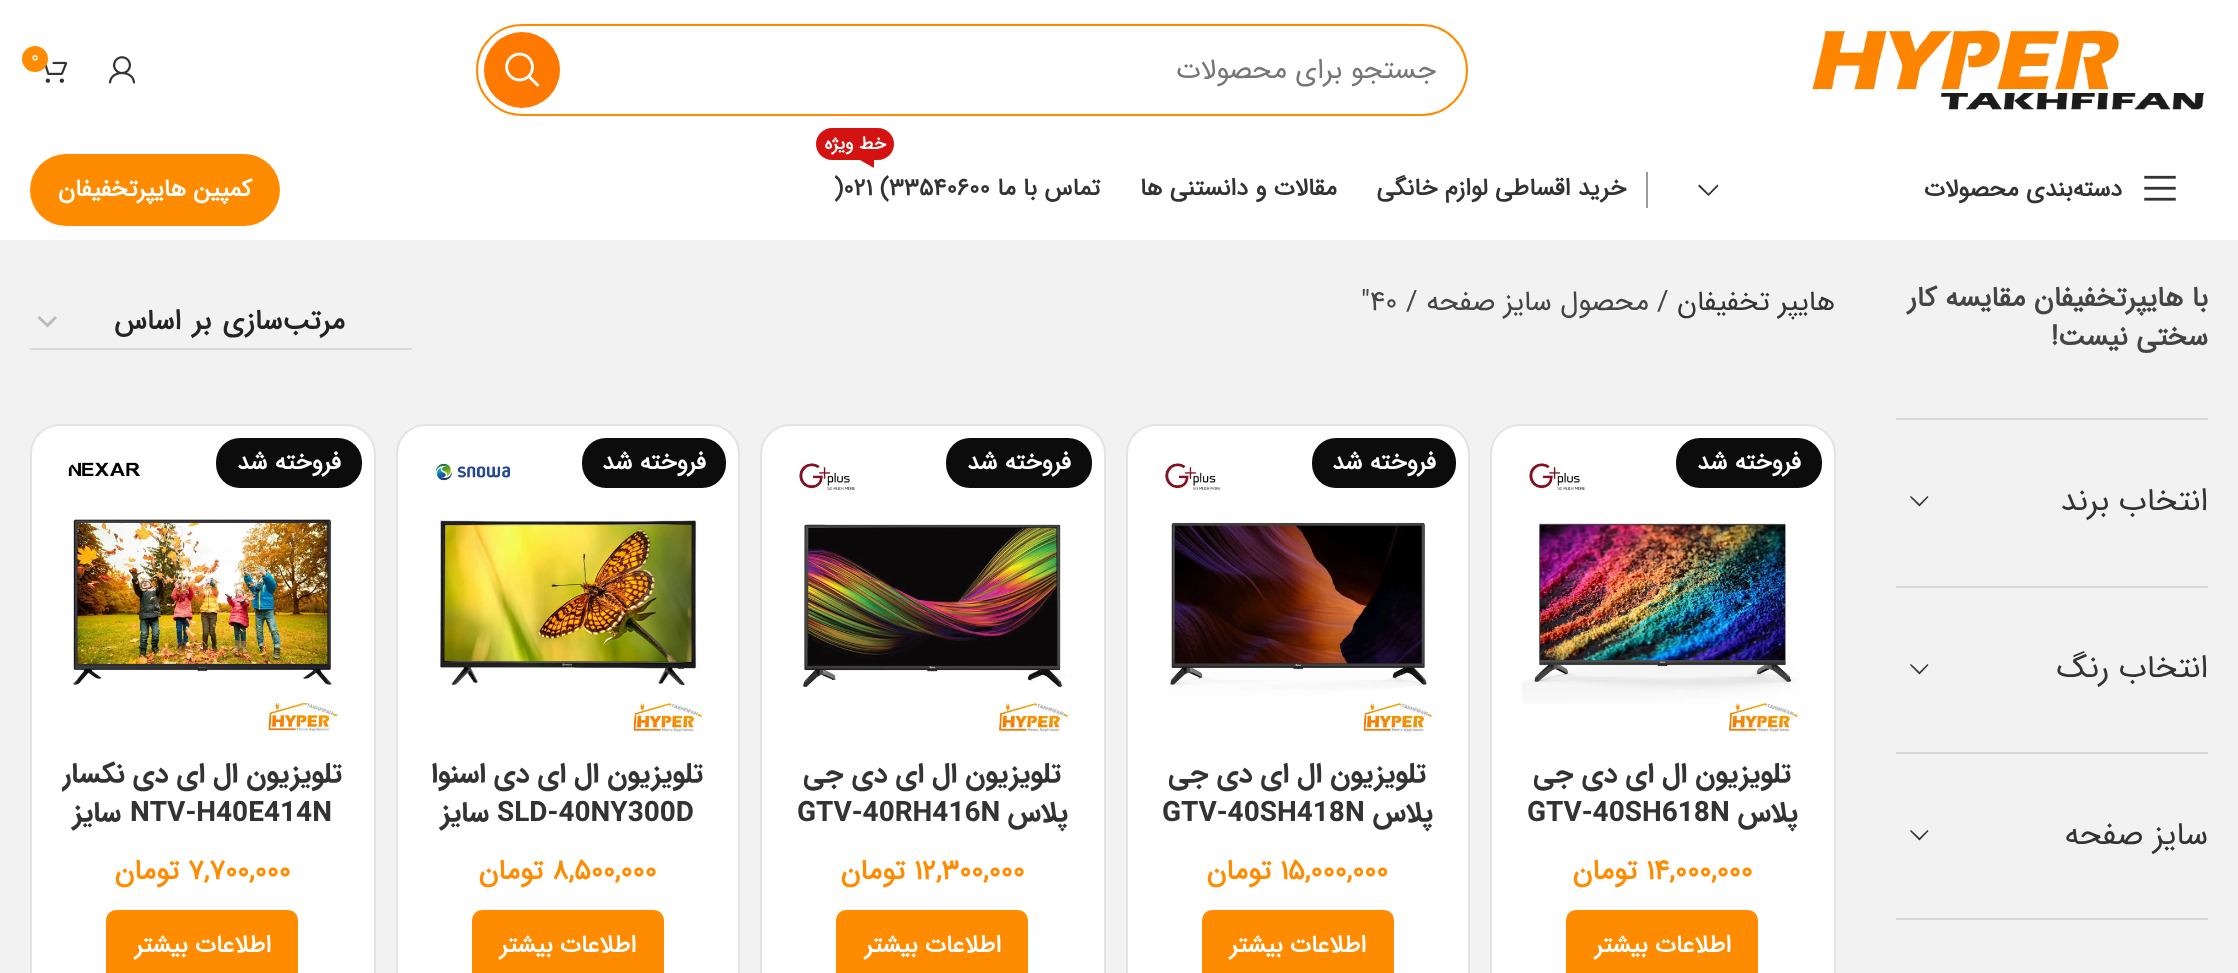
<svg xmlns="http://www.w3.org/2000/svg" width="2238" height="973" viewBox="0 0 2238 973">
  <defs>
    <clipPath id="clip1"><rect x="62" y="756" width="282" height="78"/></clipPath>
  </defs>
  <rect width="100%" height="100%" fill="rgb(255,255,255)"/>
  <image x="1812" y="30" width="392" height="80" href="pic1.png"/>
  <rect x="477" y="25" width="990" height="90" rx="45" fill="none" stroke="rgb(255,140,0)" stroke-width="2"/>
  <text x="1436" y="78" font-family="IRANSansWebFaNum" font-size="28" direction="rtl" fill="rgb(118,118,118)">جستجو برای محصولات</text>
  <circle cx="522" cy="70" r="38" fill="rgb(255,120,0)"/>
  <image x="505" y="52" width="35" height="35" href="pic2.png"/>
  <image x="108" y="56" width="28" height="28" href="pic3.png"/>
  <image x="45" y="61" width="23" height="22" href="pic4.png"/>
  <circle cx="35" cy="59" r="13" fill="rgb(255,140,0)"/>
  <text x="31" y="62" font-family="IRANSansWebFaNum" font-size="18" fill="rgb(255,255,255)">0</text>
  <image x="2144" y="175" width="32" height="26" href="pic5.png"/>
  <text x="2122" y="196" font-family="IRANSansWebFaNum" font-size="24" font-weight="bold" direction="rtl" fill="rgb(51,51,51)">دسته‌بندی محصولات</text>
  <path d="M1717.5 184.5L1708.5 193.5L1699.5 184.5L1698 186L1708.5 196L1718.5 186Z" fill="rgb(51,51,51)"/>
  <rect x="1646" y="172" width="2" height="36" fill="rgb(155,155,155)"/>
  <g font-family="IRANSansWebFaNum" font-size="24" font-weight="bold" direction="rtl" fill="rgb(51,51,51)">
    <text x="1626" y="195">خرید اقساطی لوازم خانگی</text>
    <text x="1337" y="195">مقالات و دانستنی ها</text>
  </g>
  <rect x="816" y="128" width="78" height="32" rx="16" fill="rgb(212,18,18)"/>
  <text x="886" y="149" font-family="IRANSansWebFaNum" font-size="18" font-weight="bold" direction="rtl" fill="rgb(255,255,255)">خط ویژه</text>
  <path d="M860 160H874V168Z" fill="rgb(212,18,18)"/>
  <text x="1100" y="195" font-family="IRANSansWebFaNum" font-size="24" font-weight="bold" direction="rtl" fill="rgb(51,51,51)">تماس با ما</text>
  <text x="834" y="195" font-family="IRANSansWebFaNum" font-size="24" font-weight="bold" fill="rgb(51,51,51)">)021 (33540600</text>
  <rect x="30" y="154" width="250" height="72" rx="36" fill="rgb(255,140,0)"/>
  <text x="252" y="196" font-family="IRANSansWebFaNum" font-size="24" font-weight="bold" direction="rtl" fill="rgb(255,255,255)">کمپین هایپرتخفیفان</text>
  <rect x="0" y="240" width="2238" height="733" fill="rgb(242,242,242)"/>
  <rect x="1896" y="418" width="312" height="2" fill="rgb(216,216,216)"/>
  <g font-family="IRANSansWebFaNum" font-size="28" font-weight="bold" direction="rtl" fill="rgb(68,68,68)">
    <text>
      <tspan x="2208" y="306">با هایپرتخفیفان مقایسه کار</tspan>
      <tspan x="2208" y="345">سختی نیست!</tspan>
    </text>
  </g>
  <rect x="1896" y="586" width="312" height="2" fill="rgb(216,216,216)"/>
  <text x="2208" y="510" font-family="IRANSansWebFaNum" font-size="32" direction="rtl" fill="rgb(51,51,51)">انتخاب برند</text>
  <path d="M1927.5 496L1919.5 504L1911 496L1910 497L1919.5 506.5L1928.5 497Z" fill="rgb(51,51,51)"/>
  <rect x="1896" y="752" width="312" height="2" fill="rgb(216,216,216)"/>
  <text x="2208" y="677" font-family="IRANSansWebFaNum" font-size="32" direction="rtl" fill="rgb(51,51,51)">انتخاب رنگ</text>
  <path d="M1927.5 664L1919.5 672L1911 664L1910 665L1919.5 674.5L1928.5 665Z" fill="rgb(51,51,51)"/>
  <rect x="1896" y="918" width="312" height="2" fill="rgb(216,216,216)"/>
  <text x="2208" y="844" font-family="IRANSansWebFaNum" font-size="32" direction="rtl" fill="rgb(51,51,51)">سایز صفحه</text>
  <path d="M1927.5 830L1919.5 838L1911 830L1910 831L1919.5 840.5L1928.5 831Z" fill="rgb(51,51,51)"/>
  <text x="1835" y="310" font-family="IRANSansWebFaNum" font-size="28" direction="rtl" fill="rgb(51,51,51)">هایپر تخفیفان</text>
  <text x="1657" y="310" font-family="IRANSansWebFaNum" font-size="28" fill="rgb(68,68,68)">/</text>
  <text x="1649" y="310" font-family="IRANSansWebFaNum" font-size="28" direction="rtl" fill="rgb(68,68,68)">محصول سایز صفحه</text>
  <g font-family="IRANSansWebFaNum" font-size="28" fill="rgb(68,68,68)">
    <text x="1406" y="310">/</text>
    <text x="1361" y="310">"40</text>
  </g>
  <path d="M38.5 317L47.5 325.5L56 317" fill="none" stroke="rgb(187,187,187)" stroke-width="2.9"/>
  <rect x="30" y="348" width="382" height="2" fill="rgb(218,218,218)"/>
  <text x="345" y="329" word-spacing="3" font-family="IRANSansWebFaNum" font-size="28" font-weight="bold" direction="rtl" fill="rgb(36,36,36)">مرتب‌سازی بر اساس</text>
  <rect x="1490" y="424" width="346" height="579" rx="30" fill="rgb(255,255,255)"/>
  <rect x="1491" y="425" width="344" height="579" rx="29" fill="none" stroke="rgba(0,0,0,0.11)" stroke-width="2"/>
  <image x="1522" y="463" width="278" height="270" href="pic6.png"/>
  <rect x="1676" y="438" width="146" height="50" rx="24" fill="rgb(12,12,12)"/>
  <text x="1801" y="469" font-family="IRANSansWebFaNum" font-size="24" font-weight="bold" direction="rtl" fill="rgb(255,255,255)">فروخته شد</text>
  <g font-family="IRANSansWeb" font-size="28" font-weight="bold" direction="rtl" fill="rgb(51,51,51)">
    <text x="1791" y="782">تلویزیون ال ای دی جی</text>
    <text x="1798" y="821">پلاس</text>
  </g>
  <text x="1527" y="821" font-family="IRANSansWeb" font-size="28" font-weight="bold" fill="rgb(51,51,51)">GTV-40SH618N</text>
  <text x="1646" y="879" font-family="IRANSansWebFaNum" font-size="28" font-weight="bold" fill="rgb(255,140,0)">14,000,000</text>
  <text x="1637" y="879" font-family="IRANSansWebFaNum" font-size="28" font-weight="bold" direction="rtl" fill="rgb(255,140,0)">تومان</text>
  <rect x="1566" y="910" width="192" height="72" rx="10" fill="rgb(255,140,0)"/>
  <text x="1731" y="952" font-family="IRANSansWebFaNum" font-size="24" font-weight="bold" direction="rtl" fill="rgb(255,255,255)">اطلاعات بیشتر</text>
  <rect x="1126" y="424" width="344" height="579" rx="30" fill="rgb(255,255,255)"/>
  <rect x="1127" y="425" width="342" height="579" rx="29" fill="none" stroke="rgba(0,0,0,0.11)" stroke-width="2"/>
  <image x="1165" y="463" width="269" height="269" href="pic7.png"/>
  <rect x="1312" y="438" width="144" height="50" rx="24" fill="rgb(12,12,12)"/>
  <text x="1436" y="469" font-family="IRANSansWebFaNum" font-size="24" font-weight="bold" direction="rtl" fill="rgb(255,255,255)">فروخته شد</text>
  <g font-family="IRANSansWeb" font-size="28" font-weight="bold" direction="rtl" fill="rgb(51,51,51)">
    <text x="1426" y="782">تلویزیون ال ای دی جی</text>
    <text x="1433" y="821">پلاس</text>
  </g>
  <text x="1162" y="821" font-family="IRANSansWeb" font-size="28" font-weight="bold" fill="rgb(51,51,51)">GTV-40SH418N</text>
  <text x="1280" y="879" font-family="IRANSansWebFaNum" font-size="28" font-weight="bold" fill="rgb(255,140,0)">15,000,000</text>
  <text x="1271" y="879" font-family="IRANSansWebFaNum" font-size="28" font-weight="bold" direction="rtl" fill="rgb(255,140,0)">تومان</text>
  <rect x="1202" y="910" width="192" height="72" rx="10" fill="rgb(255,140,0)"/>
  <text x="1366" y="952" font-family="IRANSansWebFaNum" font-size="24" font-weight="bold" direction="rtl" fill="rgb(255,255,255)">اطلاعات بیشتر</text>
  <rect x="760" y="424" width="346" height="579" rx="30" fill="rgb(255,255,255)"/>
  <rect x="761" y="425" width="344" height="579" rx="29" fill="none" stroke="rgba(0,0,0,0.11)" stroke-width="2"/>
  <image x="799" y="463" width="271" height="270" href="pic8.png"/>
  <rect x="946" y="438" width="146" height="50" rx="24" fill="rgb(12,12,12)"/>
  <text x="1071" y="469" font-family="IRANSansWebFaNum" font-size="24" font-weight="bold" direction="rtl" fill="rgb(255,255,255)">فروخته شد</text>
  <g font-family="IRANSansWeb" font-size="28" font-weight="bold" direction="rtl" fill="rgb(51,51,51)">
    <text x="1061" y="782">تلویزیون ال ای دی جی</text>
    <text x="1068" y="821">پلاس</text>
  </g>
  <text x="797" y="821" font-family="IRANSansWeb" font-size="28" font-weight="bold" fill="rgb(51,51,51)">GTV-40RH416N</text>
  <text x="914" y="879" font-family="IRANSansWebFaNum" font-size="28" font-weight="bold" fill="rgb(255,140,0)">12,300,000</text>
  <text x="905" y="879" font-family="IRANSansWebFaNum" font-size="28" font-weight="bold" direction="rtl" fill="rgb(255,140,0)">تومان</text>
  <rect x="836" y="910" width="192" height="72" rx="10" fill="rgb(255,140,0)"/>
  <text x="1001" y="952" font-family="IRANSansWebFaNum" font-size="24" font-weight="bold" direction="rtl" fill="rgb(255,255,255)">اطلاعات بیشتر</text>
  <rect x="396" y="424" width="344" height="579" rx="30" fill="rgb(255,255,255)"/>
  <rect x="397" y="425" width="342" height="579" rx="29" fill="none" stroke="rgba(0,0,0,0.11)" stroke-width="2"/>
  <image x="434" y="463" width="269" height="270" href="pic9.png"/>
  <rect x="582" y="438" width="144" height="50" rx="24" fill="rgb(12,12,12)"/>
  <text x="706" y="469" font-family="IRANSansWebFaNum" font-size="24" font-weight="bold" direction="rtl" fill="rgb(255,255,255)">فروخته شد</text>
  <text x="703" y="782" font-family="IRANSansWeb" font-size="28" font-weight="bold" direction="rtl" fill="rgb(51,51,51)">تلویزیون ال ای دی اسنوا</text>
  <text x="497" y="821" font-family="IRANSansWeb" font-size="28" font-weight="bold" fill="rgb(51,51,51)">SLD-40NY300D</text>
  <text x="489" y="821" font-family="IRANSansWeb" font-size="28" font-weight="bold" direction="rtl" fill="rgb(51,51,51)">سایز</text>
  <text x="552" y="879" font-family="IRANSansWebFaNum" font-size="28" font-weight="bold" fill="rgb(255,140,0)">8,500,000</text>
  <text x="543" y="879" font-family="IRANSansWebFaNum" font-size="28" font-weight="bold" direction="rtl" fill="rgb(255,140,0)">تومان</text>
  <rect x="472" y="910" width="192" height="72" rx="10" fill="rgb(255,140,0)"/>
  <text x="636" y="952" font-family="IRANSansWebFaNum" font-size="24" font-weight="bold" direction="rtl" fill="rgb(255,255,255)">اطلاعات بیشتر</text>
  <rect x="30" y="424" width="346" height="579" rx="30" fill="rgb(255,255,255)"/>
  <rect x="31" y="425" width="344" height="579" rx="29" fill="none" stroke="rgba(0,0,0,0.11)" stroke-width="2"/>
  <image x="68" y="462" width="272" height="271" href="pic10.png"/>
  <rect x="216" y="438" width="146" height="50" rx="24" fill="rgb(12,12,12)"/>
  <text x="341" y="469" font-family="IRANSansWebFaNum" font-size="24" font-weight="bold" direction="rtl" fill="rgb(255,255,255)">فروخته شد</text>
  <g clip-path="url(#clip1)">
    <text x="342" y="782" font-family="IRANSansWeb" font-size="28" font-weight="bold" direction="rtl" fill="rgb(51,51,51)">تلویزیون ال ای دی نکسار</text>
  </g>
  <text x="130" y="821" font-family="IRANSansWeb" font-size="28" font-weight="bold" fill="rgb(51,51,51)">NTV-H40E414N</text>
  <text x="121" y="821" font-family="IRANSansWeb" font-size="28" font-weight="bold" direction="rtl" fill="rgb(51,51,51)">سایز</text>
  <text x="188" y="879" font-family="IRANSansWebFaNum" font-size="28" font-weight="bold" fill="rgb(255,140,0)">7,700,000</text>
  <text x="179" y="879" font-family="IRANSansWebFaNum" font-size="28" font-weight="bold" direction="rtl" fill="rgb(255,140,0)">تومان</text>
  <rect x="106" y="910" width="192" height="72" rx="10" fill="rgb(255,140,0)"/>
  <text x="271" y="952" font-family="IRANSansWebFaNum" font-size="24" font-weight="bold" direction="rtl" fill="rgb(255,255,255)">اطلاعات بیشتر</text>
</svg>
